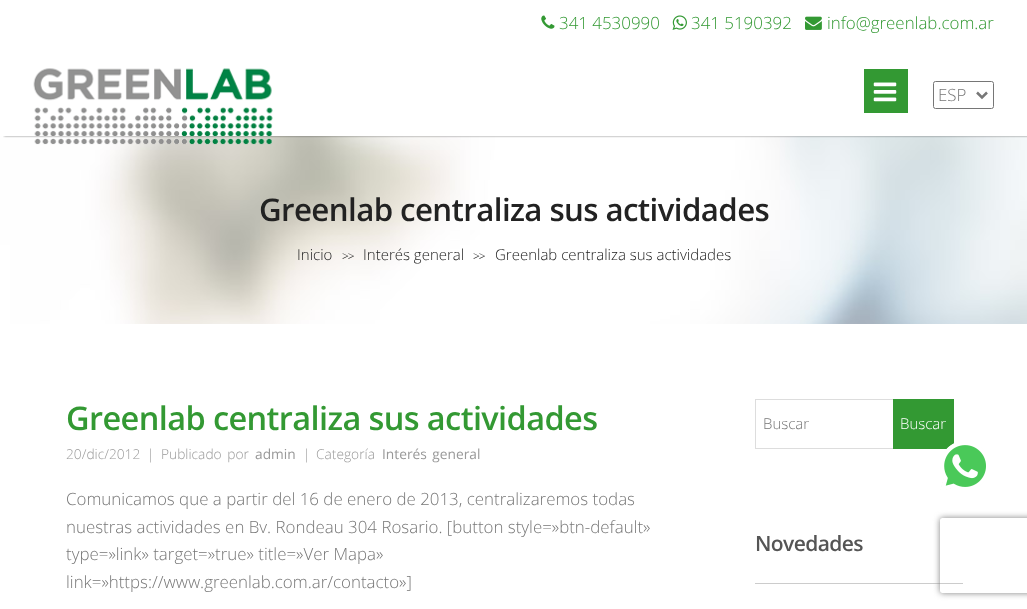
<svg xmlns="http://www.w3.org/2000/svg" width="1027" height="609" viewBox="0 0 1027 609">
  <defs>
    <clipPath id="clip1"><rect x="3" y="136" width="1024" height="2"/></clipPath>
    <clipPath id="clip2"><path d="M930 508H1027V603H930ZM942.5 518H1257.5C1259 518 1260 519 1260 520.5V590.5C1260 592 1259 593 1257.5 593H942.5C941 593 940 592 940 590.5V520.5C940 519 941 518 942.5 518Z" clip-rule="evenodd"/></clipPath>
  </defs>
  <rect width="100%" height="100%" fill="rgb(255,255,255)"/>
  <image x="0" y="136" width="1027" height="188" href="pic6.png"/>
  <g clip-path="url(#clip1)">
    <rect x="4" y="0" width="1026" height="136" fill="rgba(0,0,0,0.5)" filter="blur(1px)"/>
  </g>
  <image x="541" y="15" width="14" height="14" href="pic1.png"/>
  <text x="559" y="29" font-family="Open Sans" font-size="16.9" font-weight="300" fill="rgb(51,153,51)">341 4530990</text>
  <image x="672" y="15" width="15" height="15" href="pic2.png"/>
  <text x="691" y="29" font-family="Open Sans" font-size="16.9" font-weight="300" fill="rgb(51,153,51)">341 5190392</text>
  <image x="805" y="16" width="17" height="14" href="pic3.png"/>
  <text x="827" y="29" font-family="Open Sans" font-size="16.9" font-weight="300" fill="rgb(51,153,51)">info@greenlab.com.ar</text>
  <image x="33" y="68" width="240" height="77" href="pic4.png"/>
  <rect x="864" y="69" width="44" height="44" fill="rgb(51,153,51)"/>
  <image x="873" y="82" width="24" height="20" href="pic5.png"/>
  <rect x="933.5" y="81.5" width="60" height="27" rx="2" fill="none" stroke="rgb(118,118,118)"/>
  <path d="M977 92.5L982 97.5L987 92.5" fill="none" stroke="rgb(119,119,119)" stroke-width="2.5"/>
  <text x="938" y="101" font-family="Open Sans" font-size="16.9" font-weight="300" fill="rgb(119,119,119)">ESP</text>
  <text x="259" y="221" font-family="Open Sans" font-size="31.25" font-weight="600" letter-spacing="-0.6" fill="rgb(34,34,34)">Greenlab centraliza sus actividades</text>
  <text x="297" y="260" font-family="Open Sans" font-size="15" font-weight="300" fill="rgb(34,34,34)">Inicio</text>
  <text x="342" y="260" font-family="Liberation Serif" font-size="12" letter-spacing="-1" fill="rgb(34,34,34)">&gt;&gt;</text>
  <text x="363" y="260" font-family="Open Sans" font-size="15" font-weight="300" fill="rgb(34,34,34)">Interés general</text>
  <text x="473" y="260" font-family="Liberation Serif" font-size="12" letter-spacing="-1" fill="rgb(34,34,34)">&gt;&gt;</text>
  <text x="495" y="260" font-family="Open Sans" font-size="15" font-weight="300" fill="rgb(34,34,34)">Greenlab centraliza sus actividades</text>
  <text x="66" y="430" font-family="Open Sans" font-size="32.5" font-weight="600" letter-spacing="-0.6" fill="rgb(51,153,51)">Greenlab centraliza sus actividades</text>
  <g font-family="Open Sans" font-size="13.75" font-weight="300" fill="rgb(153,153,153)">
    <text x="66" y="459">20/dic/2012</text>
    <text x="147" y="459">|</text>
    <text x="161" y="459" word-spacing="2">Publicado por</text>
  </g>
  <text x="255" y="459" font-family="Open Sans" font-size="13.75" fill="rgb(153,153,153)">admin</text>
  <text x="303" y="459" word-spacing="2" font-family="Open Sans" font-size="13.75" font-weight="300" fill="rgb(153,153,153)">| Categoría</text>
  <text x="382" y="459" word-spacing="2" font-family="Open Sans" font-size="13.75" fill="rgb(153,153,153)">Interés general</text>
  <g font-family="Open Sans" font-size="16.9" font-weight="300" fill="rgb(119,119,119)">
    <text>
      <tspan x="66" y="505">Comunicamos que a partir del 16 de enero de 2013, centralizaremos todas</tspan>
      <tspan x="66" y="533">nuestras actividades en Bv. Rondeau 304 Rosario. [button style=»btn-default»</tspan>
      <tspan x="66" y="560">type=»link» target=»true» title=»Ver Mapa»</tspan>
      <tspan x="66" y="588">link=»https://www.greenlab.com.ar/contacto»]</tspan>
    </text>
  </g>
  <rect x="755" y="399" width="138" height="1" fill="rgb(221,221,221)"/>
  <rect x="755" y="448" width="138" height="1" fill="rgb(221,221,221)"/>
  <rect x="755" y="399" width="1" height="50" fill="rgb(221,221,221)"/>
  <text x="763" y="429" font-family="Open Sans" font-size="15" font-weight="300" fill="rgb(119,119,119)">Buscar</text>
  <rect x="893" y="399" width="61" height="50" fill="rgb(51,153,51)"/>
  <text x="900" y="429" font-family="Open Sans" font-size="15" font-weight="300" fill="rgb(255,255,255)">Buscar</text>
  <text x="755" y="551" font-family="Open Sans" font-size="21" font-weight="600" letter-spacing="-0.6" fill="rgb(85,85,85)">Novedades</text>
  <rect x="755" y="583" width="208" height="1" fill="rgb(204,204,204)"/>
  <image x="940" y="443" width="46" height="47" href="pic7.png"/>
  <g clip-path="url(#clip2)">
    <rect x="940" y="518" width="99" height="75" rx="2.5" fill="rgb(128,128,128)" filter="blur(3px)"/>
  </g>
</svg>
